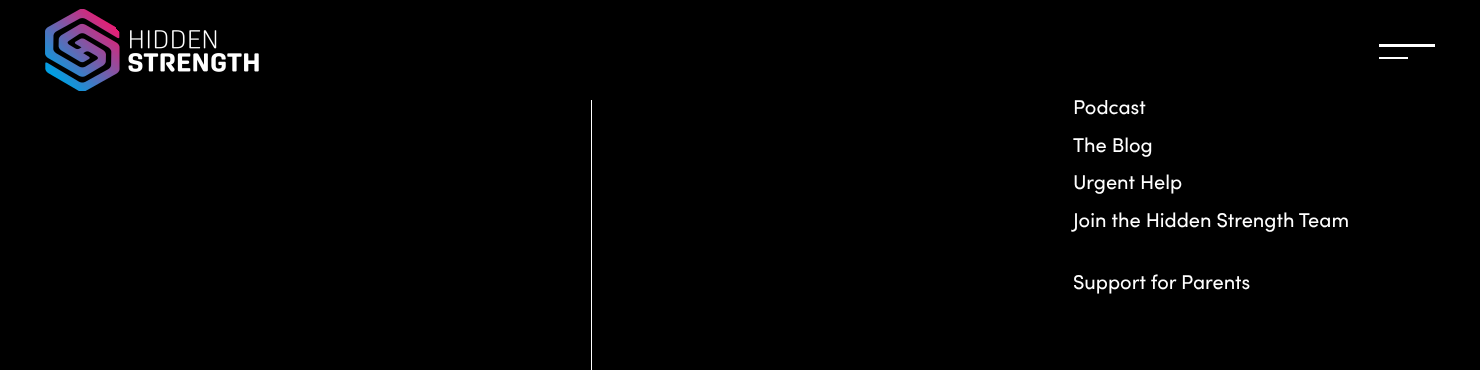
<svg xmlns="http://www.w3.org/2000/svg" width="1480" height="370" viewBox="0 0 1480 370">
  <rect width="100%" height="100%" fill="rgb(0,0,0)"/>
  <text x="1073" y="114" font-family="Sofia" font-size="20" fill="rgb(255,255,255)">Podcast</text>
  <rect x="1105" y="99" width="3" height="1" fill="rgb(0,0,0)"/>
  <image x="45" y="9" width="214" height="82" href="pic1.png"/>
  <rect x="1379" y="44" width="56" height="3" fill="rgb(255,255,255)"/>
  <rect x="1379" y="57" width="29" height="2" fill="rgb(255,255,255)"/>
  <rect x="591" y="100" width="1" height="270" fill="rgb(255,255,255)"/>
  <g font-family="Sofia" font-size="20" fill="rgb(255,255,255)">
    <text>
      <tspan x="1073" y="152">The Blog</tspan>
      <tspan x="1073" y="189">Urgent Help</tspan>
      <tspan x="1073" y="227">Join the Hidden Strength Team</tspan>
    </text>
    <text x="1073" y="289">Support for Parents</text>
  </g>
</svg>
